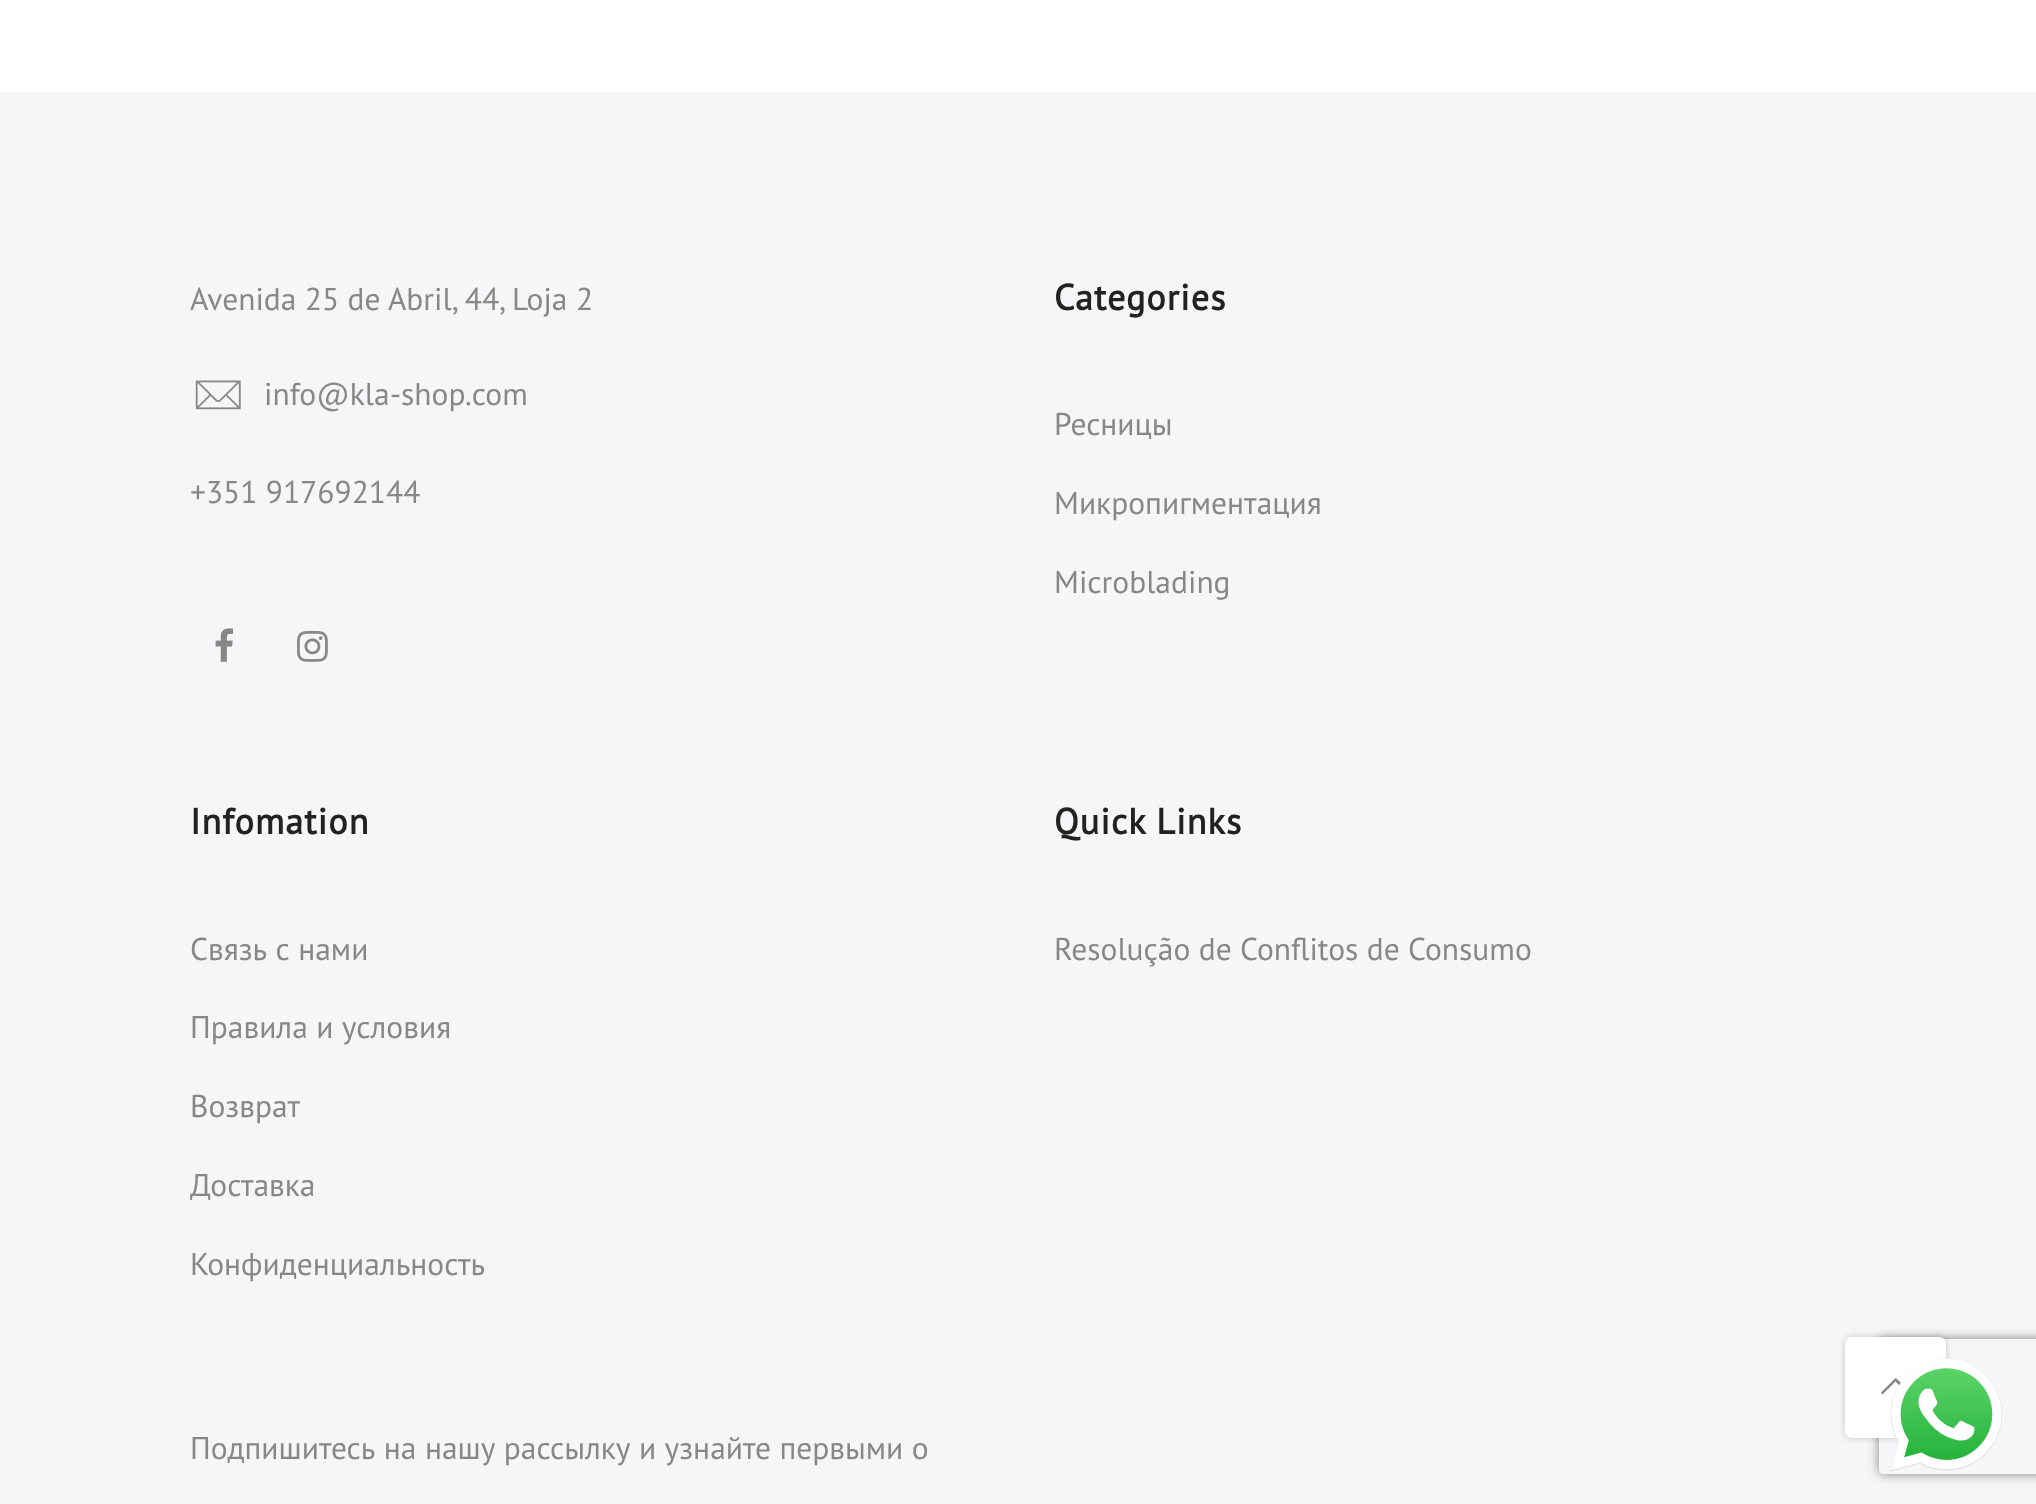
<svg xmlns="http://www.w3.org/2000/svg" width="2036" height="1504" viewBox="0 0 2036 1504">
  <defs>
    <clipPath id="clip1"><path d="M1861 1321H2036V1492H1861ZM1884 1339H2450C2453 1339 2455 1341 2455 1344V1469C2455 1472 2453 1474 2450 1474H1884C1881 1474 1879 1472 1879 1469V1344C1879 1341 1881 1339 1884 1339Z" clip-rule="evenodd"/></clipPath>
  </defs>
  <rect width="100%" height="100%" fill="rgb(255,255,255)"/>
  <rect x="0" y="92" width="2036" height="1412" fill="rgb(246,246,248)"/>
  <text x="190" y="310" font-family="PT Sans" font-size="31.5" fill="rgb(135,135,135)">Avenida 25 de Abril, 44, Loja 2</text>
  <image x="195" y="380" width="46" height="30" href="pic1.png"/>
  <g font-family="PT Sans" font-size="31.5" fill="rgb(135,135,135)">
    <text x="264" y="405">info@kla-shop.com</text>
    <text x="190" y="503">+351 917692144</text>
  </g>
  <image x="215" y="628" width="18" height="34" href="pic2.png"/>
  <image x="297" y="631" width="31" height="31" href="pic3.png"/>
  <text x="1054" y="310" font-family="PT Sans" font-size="36" font-weight="bold" letter-spacing="1.1" fill="rgb(34,34,34)">Categories</text>
  <g font-family="PT Sans" font-size="31.5" fill="rgb(135,135,135)">
    <text x="1054" y="435">Ресницы</text>
    <text x="1054" y="514">Микропигментация</text>
    <text x="1054" y="593">Microblading</text>
  </g>
  <text x="190" y="834" font-family="PT Sans" font-size="36" font-weight="bold" letter-spacing="1.1" fill="rgb(34,34,34)">Infomation</text>
  <g font-family="PT Sans" font-size="31.5" fill="rgb(135,135,135)">
    <text x="190" y="960">Связь с нами</text>
    <text x="190" y="1038">Правила и условия</text>
    <text x="190" y="1117">Возврат</text>
    <text x="190" y="1196">Доставка</text>
    <text x="190" y="1275">Конфиденциальность</text>
  </g>
  <text x="1054" y="834" font-family="PT Sans" font-size="36" font-weight="bold" letter-spacing="1.1" fill="rgb(34,34,34)">Quick Links</text>
  <g font-family="PT Sans" font-size="31.5" fill="rgb(135,135,135)">
    <text x="1054" y="960">Resolução de Conflitos de Consumo</text>
    <text x="190" y="1459">Подпишитесь на нашу рассылку и узнайте первыми о</text>
  </g>
  <g clip-path="url(#clip1)">
    <rect x="1879" y="1339" width="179" height="135" rx="5" fill="rgb(128,128,128)" filter="blur(5.5px)"/>
  </g>
  <rect x="1845" y="1337" width="101" height="101" rx="7" fill="rgba(0,0,0,0.2)" filter="blur(3.5px)"/>
  <rect x="1845" y="1337" width="101" height="101" rx="7" fill="rgb(255,255,255)"/>
  <path d="M1897.5 1379.5L1895.5 1378L1881 1392.5L1882.5 1394.5L1895.5 1381.5L1908.5 1394.5L1910.5 1392.5Z" fill="rgb(135,135,135)"/>
  <image x="1890" y="1359" width="112" height="112" href="pic4.png"/>
</svg>
